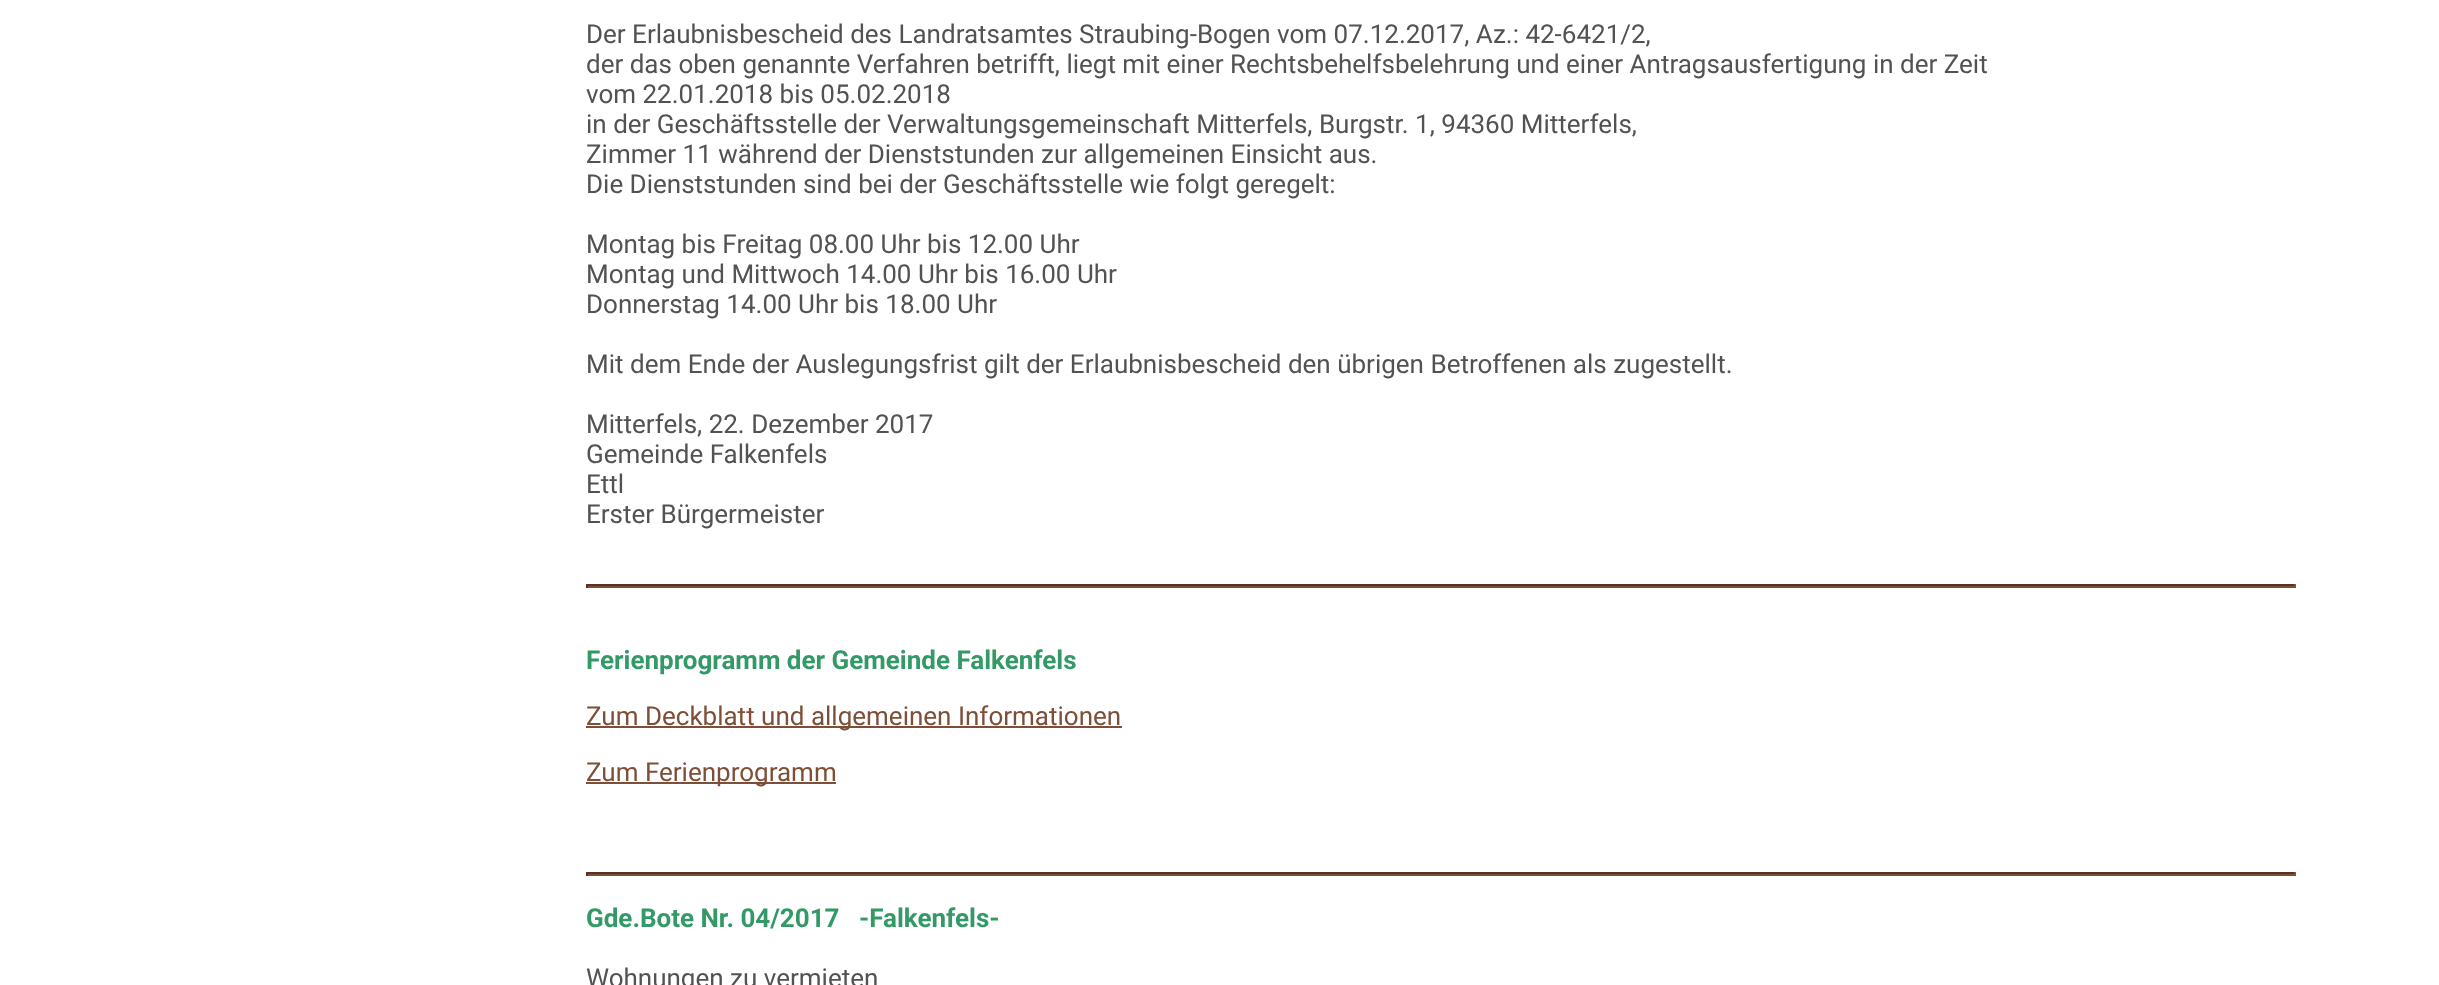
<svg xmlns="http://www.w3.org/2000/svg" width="2439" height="985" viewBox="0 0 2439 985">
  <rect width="100%" height="100%" fill="rgb(255,255,255)"/>
  <g font-family="Roboto" font-size="26" fill="rgb(82,82,82)">
    <text>
      <tspan x="586" y="43">Der Erlaubnisbescheid des Landratsamtes Straubing-Bogen vom 07.12.2017, Az.: 42-6421/2,</tspan>
      <tspan x="586" y="73">der das oben genannte Verfahren betrifft, liegt mit einer Rechtsbehelfsbelehrung und einer Antragsausfertigung in der Zeit</tspan>
      <tspan x="586" y="103">vom 22.01.2018 bis 05.02.2018</tspan>
      <tspan x="586" y="133">in der Geschäftsstelle der Verwaltungsgemeinschaft Mitterfels, Burgstr. 1, 94360 Mitterfels,</tspan>
      <tspan x="586" y="163">Zimmer 11 während der Dienststunden zur allgemeinen Einsicht aus.</tspan>
      <tspan x="586" y="193">Die Dienststunden sind bei der Geschäftsstelle wie folgt geregelt:</tspan>
    </text>
    <text>
      <tspan x="586" y="253">Montag bis Freitag 08.00 Uhr bis 12.00 Uhr</tspan>
      <tspan x="586" y="283">Montag und Mittwoch 14.00 Uhr bis 16.00 Uhr</tspan>
      <tspan x="586" y="313">Donnerstag 14.00 Uhr bis 18.00 Uhr</tspan>
    </text>
    <text x="586" y="373">Mit dem Ende der Auslegungsfrist gilt der Erlaubnisbescheid den übrigen Betroffenen als zugestellt.</text>
    <text>
      <tspan x="586" y="433">Mitterfels, 22. Dezember 2017</tspan>
      <tspan x="586" y="463">Gemeinde Falkenfels</tspan>
      <tspan x="586" y="493">Ettl</tspan>
      <tspan x="586" y="523">Erster Bürgermeister</tspan>
    </text>
  </g>
  <rect x="586" y="584" width="1710" height="2" fill="rgb(84,52,37)"/>
  <rect x="2294" y="584" width="2" height="4" fill="rgb(126,78,55)"/>
  <rect x="586" y="586" width="1710" height="2" fill="rgb(126,78,55)"/>
  <rect x="586" y="584" width="2" height="4" fill="rgb(84,52,37)"/>
  <text x="586" y="669" font-family="Roboto" font-size="26" font-weight="bold" fill="rgb(51,153,102)">Ferienprogramm der Gemeinde Falkenfels</text>
  <rect x="586" y="726" width="536" height="2" fill="rgb(126,78,55)"/>
  <text x="586" y="725" font-family="Roboto" font-size="26" fill="rgb(126,78,55)">Zum Deckblatt und allgemeinen Informationen</text>
  <rect x="586" y="782" width="250" height="2" fill="rgb(126,78,55)"/>
  <text x="586" y="781" font-family="Roboto" font-size="26" fill="rgb(126,78,55)">Zum Ferienprogramm</text>
  <rect x="586" y="872" width="1710" height="2" fill="rgb(84,52,37)"/>
  <rect x="2294" y="872" width="2" height="4" fill="rgb(126,78,55)"/>
  <rect x="586" y="874" width="1710" height="2" fill="rgb(126,78,55)"/>
  <rect x="586" y="872" width="2" height="4" fill="rgb(84,52,37)"/>
  <text x="586" y="927" font-family="Roboto" font-size="26" font-weight="bold" fill="rgb(51,153,102)" xml:space="preserve">Gde.Bote Nr. 04/2017   -Falkenfels-</text>
  <text x="586" y="987" font-family="Roboto" font-size="26" fill="rgb(82,82,82)">Wohnungen zu vermieten</text>
</svg>
